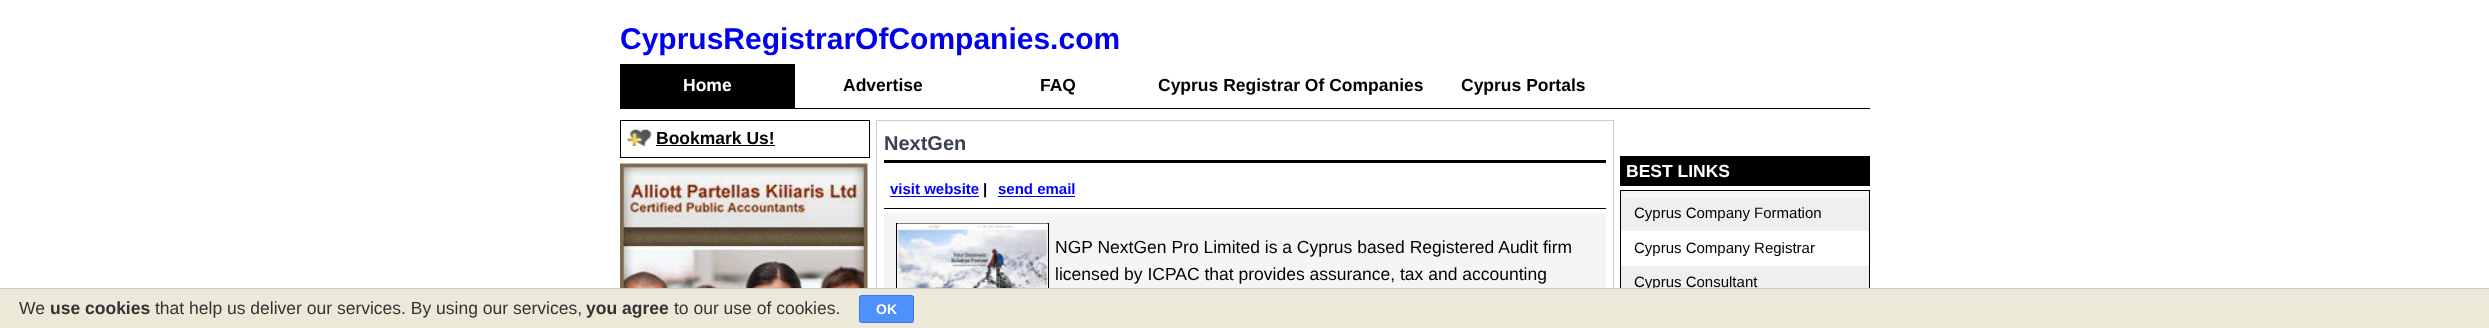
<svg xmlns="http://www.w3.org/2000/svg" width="2489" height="328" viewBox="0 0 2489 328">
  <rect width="100%" height="100%" fill="rgb(255,255,255)"/>
  <text x="620" y="49" font-family="Liberation Sans" font-size="30" font-weight="bold" fill="rgb(0,0,238)">CyprusRegistrarOfCompanies.com</text>
  <rect x="620" y="108" width="1250" height="1" fill="rgb(0,0,0)"/>
  <rect x="620" y="64" width="175" height="44" fill="rgb(0,0,0)"/>
  <text x="683" y="91" font-family="Liberation Sans" font-size="17.5" font-weight="bold" fill="rgb(255,255,255)">Home</text>
  <g font-family="Liberation Sans" font-size="17.5" font-weight="bold" fill="rgb(0,0,0)">
    <text x="843" y="91">Advertise</text>
    <text x="1040" y="91">FAQ</text>
    <text x="1158" y="91">Cyprus Registrar Of Companies</text>
    <text x="1461" y="91">Cyprus Portals</text>
  </g>
  <rect x="620.5" y="120.5" width="249" height="37" fill="none" stroke="rgb(0,0,0)"/>
  <image x="627" y="129" width="25" height="17" href="pic1.png"/>
  <text x="656" y="144" font-family="Liberation Sans" font-size="17.5" font-weight="bold" fill="rgb(0,0,0)">Bookmark Us!</text>
  <rect x="656" y="145" width="119" height="1" fill="rgb(0,0,0)"/>
  <image x="620" y="163" width="248" height="125" href="pic2.png"/>
  <rect x="876.5" y="120.5" width="737" height="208" fill="none" stroke="rgb(204,204,204)"/>
  <rect x="884" y="160" width="722" height="3" fill="rgb(0,0,0)"/>
  <text x="884" y="150" font-family="Liberation Sans" font-size="20" font-weight="bold" fill="rgb(56,66,78)">NextGen</text>
  <rect x="884" y="208" width="722" height="1" fill="rgb(0,0,0)"/>
  <text x="890" y="194" font-family="Liberation Sans" font-size="15" font-weight="bold" fill="rgb(0,0,255)">visit website</text>
  <rect x="890" y="196" width="89" height="1" fill="rgb(0,0,255)"/>
  <text x="983" y="194" font-family="Liberation Sans" font-size="15" font-weight="bold" fill="rgb(0,0,0)">|</text>
  <text x="998" y="194" font-family="Liberation Sans" font-size="15" font-weight="bold" fill="rgb(0,0,255)">send email</text>
  <rect x="998" y="196" width="77" height="1" fill="rgb(0,0,255)"/>
  <rect x="884" y="213" width="722" height="75" fill="rgb(245,245,245)"/>
  <rect x="896.5" y="223.5" width="152" height="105" fill="none" stroke="rgb(0,0,0)"/>
  <image x="897" y="223" width="151" height="65" href="pic3.png"/>
  <g font-family="Liberation Sans" font-size="17.5" fill="rgb(0,0,0)">
    <text>
      <tspan x="1055" y="253">NGP NextGen Pro Limited is a Cyprus based Registered Audit firm</tspan>
      <tspan x="1055" y="280">licensed by ICPAC that provides assurance, tax and accounting</tspan>
    </text>
  </g>
  <rect x="1620" y="156" width="250" height="30" fill="rgb(0,0,0)"/>
  <text x="1626" y="177" font-family="Liberation Sans" font-size="17.5" font-weight="bold" fill="rgb(255,255,255)">BEST LINKS</text>
  <rect x="1621" y="191" width="248" height="7" fill="rgb(245,245,245)"/>
  <rect x="1620.5" y="190.5" width="249" height="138" fill="none" stroke="rgb(0,0,0)"/>
  <rect x="1621" y="198" width="248" height="33" fill="rgb(239,239,239)"/>
  <g font-family="Liberation Sans" font-size="15" fill="rgb(0,0,0)">
    <text x="1634" y="218">Cyprus Company Formation</text>
    <text x="1634" y="253">Cyprus Company Registrar</text>
  </g>
  <rect x="1621" y="266" width="248" height="22" fill="rgb(239,239,239)"/>
  <text x="1634" y="287" font-family="Liberation Sans" font-size="15" fill="rgb(0,0,0)">Cyprus Consultant</text>
  <rect x="0" y="289" width="2489" height="39" fill="rgb(236,233,216)"/>
  <rect x="0" y="288" width="2489" height="1" fill="rgb(204,204,204)"/>
  <text x="19" y="314" font-family="Liberation Sans" font-size="17.5" fill="rgb(51,51,51)">We</text>
  <text x="50" y="314" font-family="Liberation Sans" font-size="17.5" font-weight="bold" fill="rgb(51,51,51)">use cookies</text>
  <text x="155" y="314" font-family="Liberation Sans" font-size="17.5" fill="rgb(51,51,51)">that help us deliver our services. By using our services,</text>
  <text x="586" y="314" font-family="Liberation Sans" font-size="17.5" font-weight="bold" fill="rgb(51,51,51)">you agree</text>
  <text x="674" y="314" font-family="Liberation Sans" font-size="17.5" fill="rgb(51,51,51)">to our use of cookies.</text>
  <rect x="859.5" y="295.5" width="54" height="27" rx="2" fill="rgb(77,144,254)" stroke="rgb(48,121,237)"/>
  <text x="876" y="314" font-family="Liberation Sans" font-size="14" font-weight="bold" fill="rgb(255,255,255)">OK</text>
</svg>
